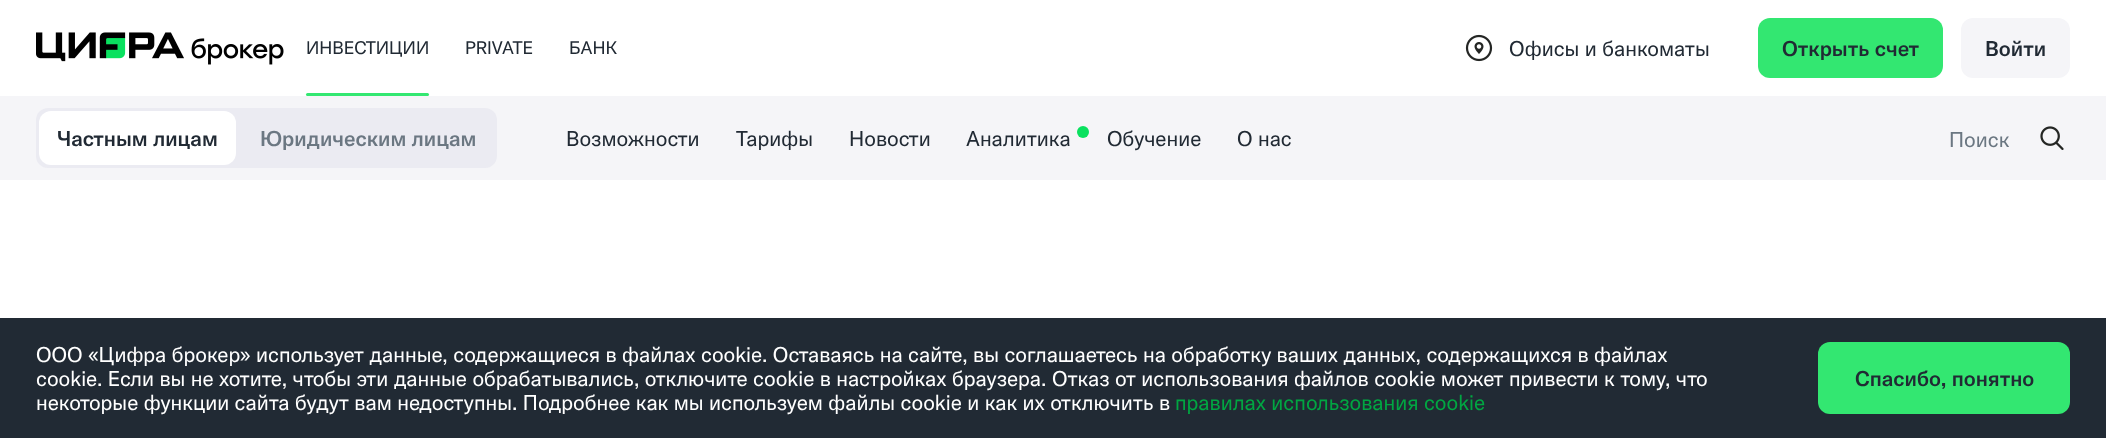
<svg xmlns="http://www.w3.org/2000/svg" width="2106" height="438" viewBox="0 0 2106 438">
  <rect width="100%" height="100%" fill="rgb(255,255,255)"/>
  <image x="36" y="32" width="248" height="33" href="pic1.png"/>
  <text x="306" y="54" font-family="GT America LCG" font-size="18" fill="rgb(33,42,52)">ИНВЕСТИЦИИ</text>
  <rect x="306" y="93" width="123" height="3" rx="1.5" fill="rgb(51,231,113)"/>
  <g font-family="GT America LCG" font-size="18" fill="rgb(33,42,52)">
    <text x="465" y="54">PRIVATE</text>
    <text x="569" y="54">БАНК</text>
  </g>
  <image x="1465" y="34" width="28" height="28" href="pic2.png"/>
  <text x="1509" y="56" font-family="GT America LCG" font-size="21" fill="rgb(33,42,52)">Офисы и банкоматы</text>
  <rect x="1758" y="18" width="185" height="60" rx="12" fill="rgb(51,231,113)"/>
  <text x="1782" y="56" font-family="GT America LCG" font-size="21" font-weight="500" fill="rgb(33,42,52)">Открыть счет</text>
  <rect x="1961" y="18" width="109" height="60" rx="12" fill="rgb(245,245,248)"/>
  <text x="1985" y="56" font-family="GT America LCG" font-size="21" font-weight="500" fill="rgb(33,42,52)">Войти</text>
  <rect x="0" y="96" width="2106" height="84" fill="rgb(245,245,248)"/>
  <rect x="36" y="108" width="461" height="60" rx="12" fill="rgb(235,235,242)"/>
  <rect x="39" y="111" width="197" height="54" rx="12" fill="rgb(255,255,255)"/>
  <text x="57" y="146" font-family="GT America LCG" font-size="21" font-weight="500" fill="rgb(33,42,52)">Частным лицам</text>
  <text x="260" y="146" font-family="GT America LCG" font-size="21" font-weight="500" fill="rgb(107,119,130)">Юридическим лицам</text>
  <g font-family="GT America LCG" font-size="21" fill="rgb(33,42,52)">
    <text x="566" y="146">Возможности</text>
    <text x="736" y="146">Тарифы</text>
    <text x="849" y="146">Новости</text>
    <text x="966" y="146">Аналитика</text>
  </g>
  <circle cx="1083" cy="132" r="6" fill="rgb(10,225,95)"/>
  <g font-family="GT America LCG" font-size="21" fill="rgb(33,42,52)">
    <text x="1107" y="146">Обучение</text>
    <text x="1237" y="146">О нас</text>
  </g>
  <text x="1949" y="147" font-family="GT America LCG" font-size="21" fill="rgb(107,119,130)">Поиск</text>
  <image x="2040" y="126" width="24" height="24" href="pic3.png"/>
  <rect x="0" y="318" width="2106" height="120" fill="rgb(33,42,52)"/>
  <g font-family="GT America LCG" font-size="21" fill="rgb(255,255,255)">
    <text>
      <tspan x="36" y="362">ООО «Цифра брокер» использует данные, содержащиеся в файлах cookie. Оставаясь на сайте, вы соглашаетесь на обработку ваших данных, содержащихся в файлах</tspan>
      <tspan x="36" y="386">cookie. Если вы не хотите, чтобы эти данные обрабатывались, отключите cookie в настройках браузера. Отказ от использования файлов cookie может привести к тому, что</tspan>
      <tspan x="36" y="410">некоторые функции cайта будут вам недоступны. Подробнее как мы используем файлы cookie и как их отключить в</tspan>
    </text>
  </g>
  <text x="1175" y="410" font-family="GT America LCG" font-size="21" fill="rgb(1,166,66)">правилах использования cookie</text>
  <rect x="1818" y="342" width="252" height="72" rx="12" fill="rgb(51,231,113)"/>
  <text x="1855" y="386" font-family="GT America LCG" font-size="21" font-weight="500" fill="rgb(33,42,52)">Спасибо, понятно</text>
</svg>
